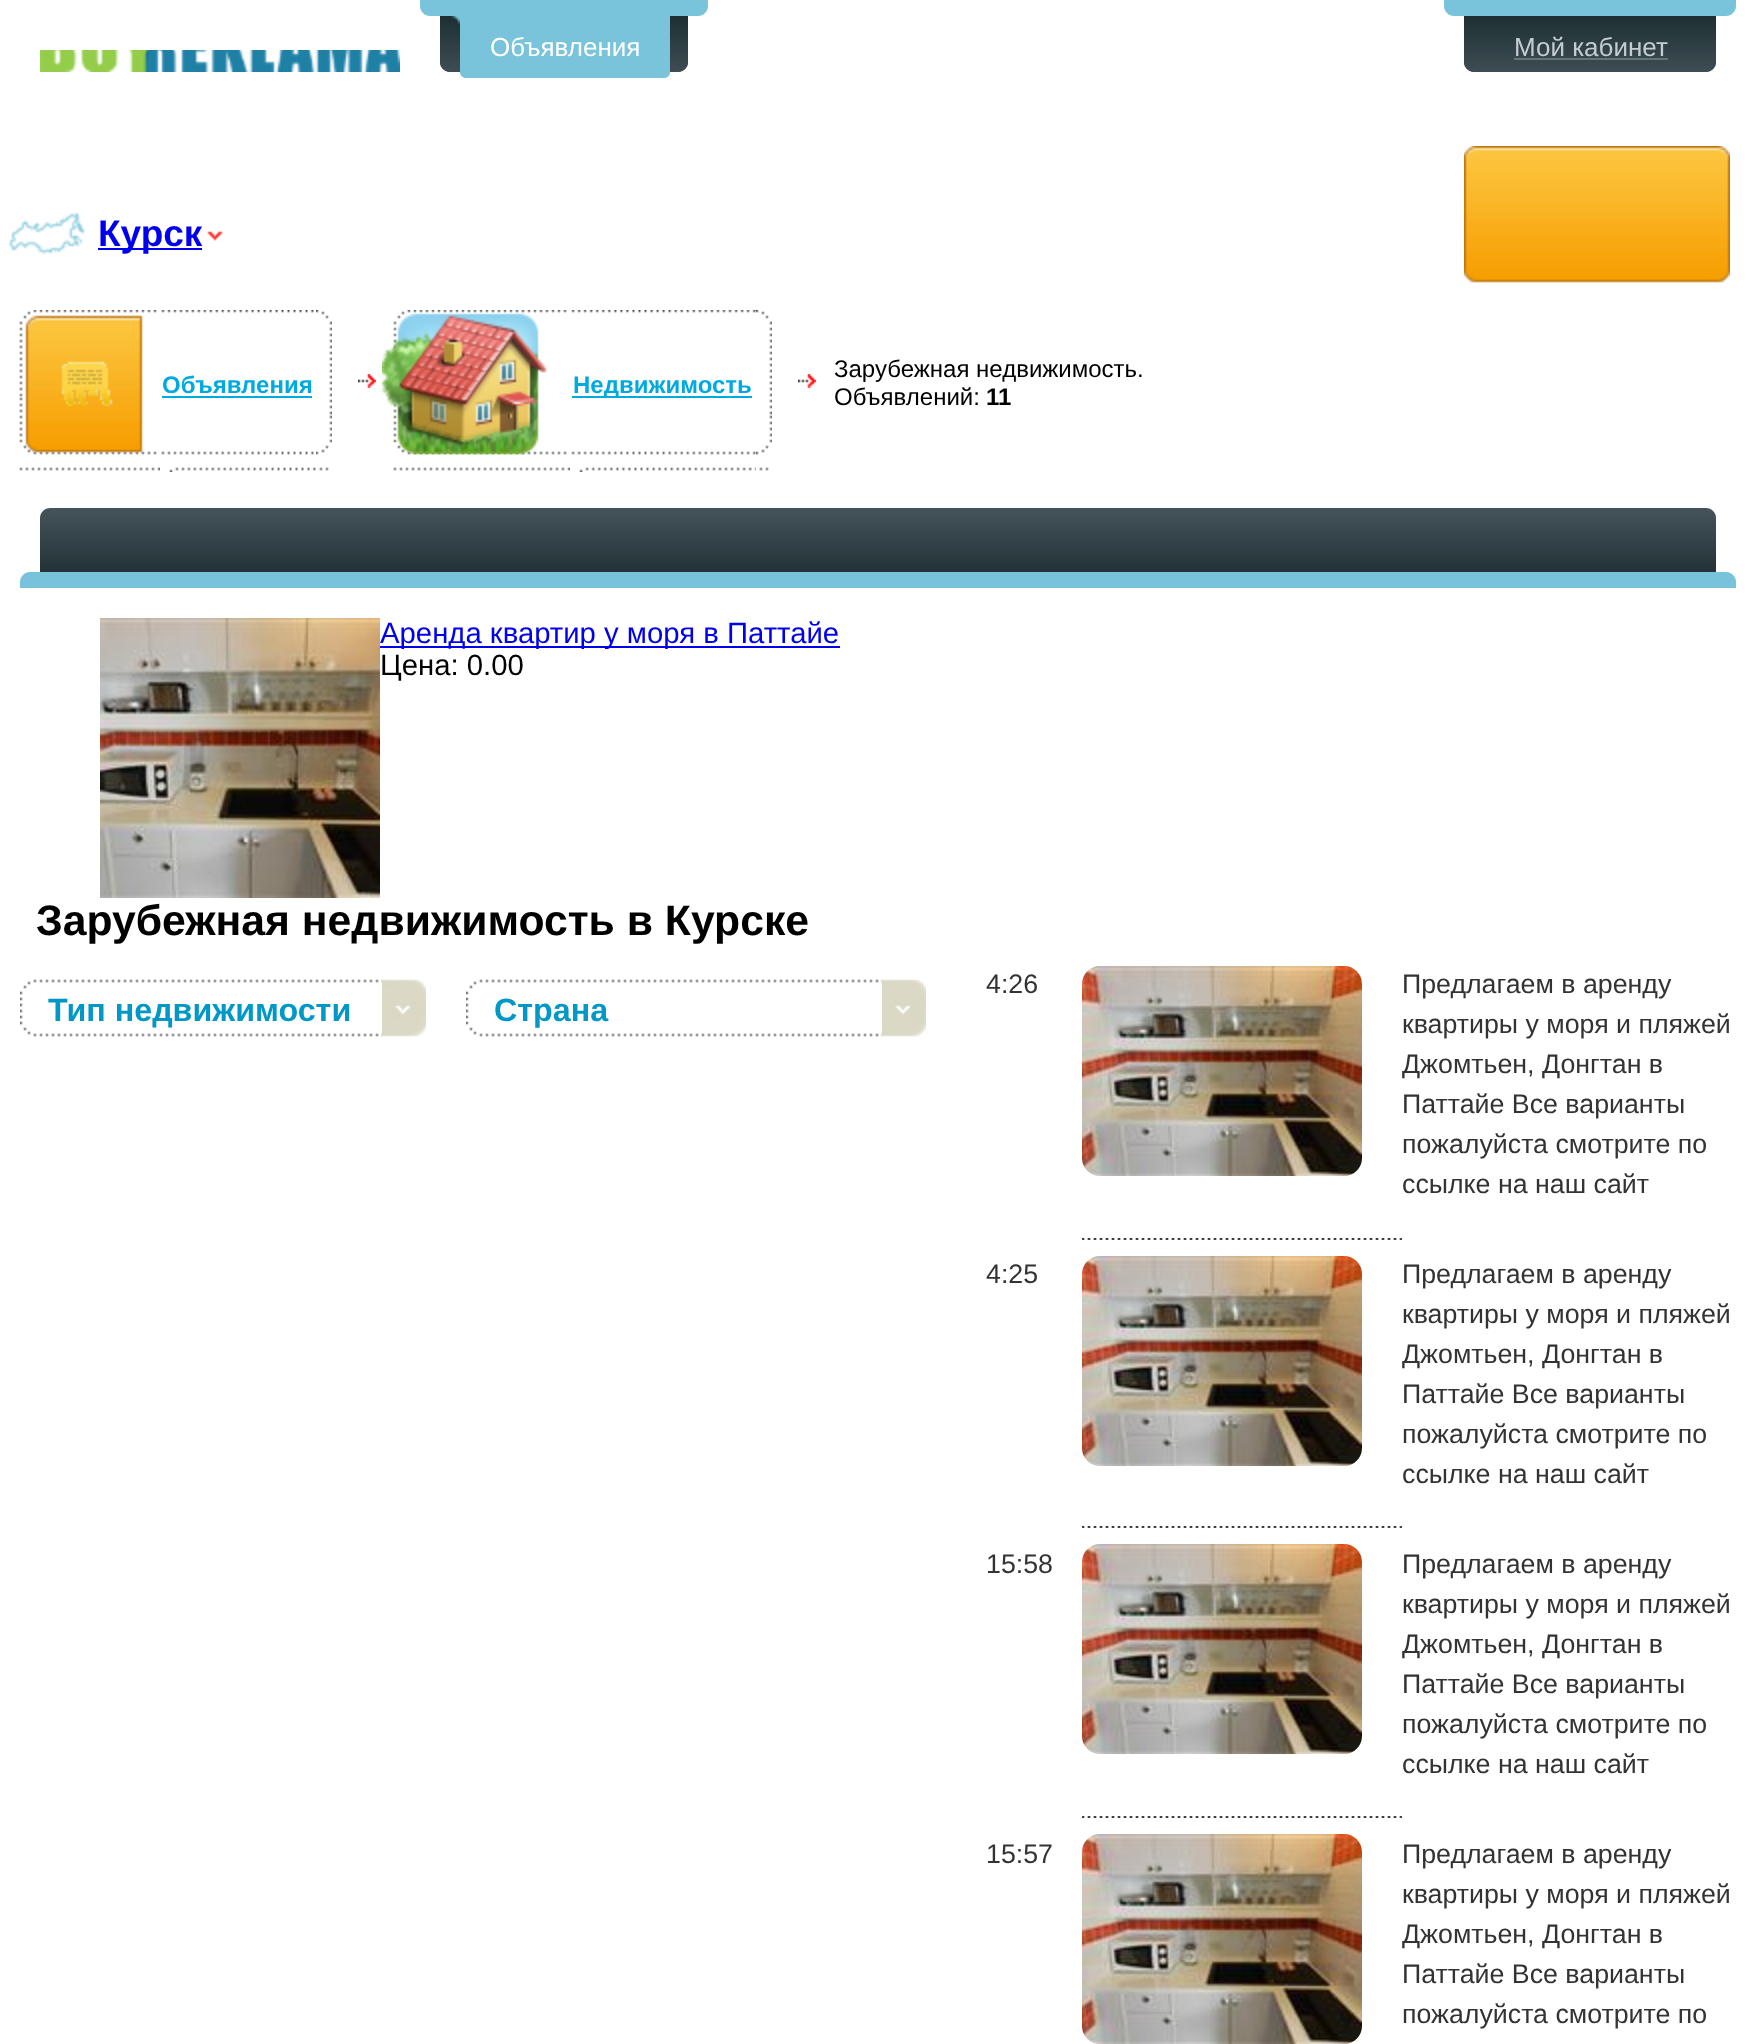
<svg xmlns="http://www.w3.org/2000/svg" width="1755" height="2044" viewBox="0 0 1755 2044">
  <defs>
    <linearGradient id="g1" gradientUnits="userSpaceOnUse" x1="878" y1="508" x2="878" y2="572"><stop offset="0" stop-color="rgb(69,84,90)"/><stop offset="1" stop-color="rgb(34,50,55)"/></linearGradient>
  </defs>
  <rect width="100%" height="100%" fill="rgb(255,255,255)"/>
  <path d="M420 0H708V6C708 11.5 703.5 16 698 16H430C424.5 16 420 11.5 420 6Z" fill="rgb(121,196,219)"/>
  <path d="M440 16H688V62C688 67.5 683.5 72 678 72H450C444.5 72 440 67.5 440 62Z" fill="rgb(67,82,88)"/>
  <image x="440" y="16" width="248" height="56" href="pic1.png"/>
  <path d="M460 16H670V72C670 75.5 667.5 78 664 78H466C462.5 78 460 75.5 460 72Z" fill="rgb(121,196,219)"/>
  <image x="452" y="16" width="8" height="8" href="pic2.png"/>
  <text x="490" y="56" font-family="Liberation Sans" font-size="26" fill="rgb(255,255,255)">Объявления</text>
  <image x="9" y="211" width="76" height="44" href="pic3.png"/>
  <rect x="98" y="248" width="104" height="2" fill="rgb(0,0,238)"/>
  <text x="98" y="246" font-family="Liberation Sans" font-size="37" font-weight="bold" fill="rgb(0,0,238)">Курск</text>
  <image x="207" y="231" width="16" height="10" href="pic4.png"/>
  <image x="19" y="310" width="141" height="161" href="pic5.png"/>
  <image x="25" y="315" width="118" height="138" href="pic6.png"/>
  <image x="161" y="310" width="155" height="162" href="pic7.png"/>
  <text x="162" y="393" font-family="Liberation Sans" font-size="24" font-weight="bold" fill="rgb(0,170,224)">Объявления</text>
  <rect x="162" y="396" width="150" height="2" fill="rgb(0,170,224)"/>
  <image x="316" y="310" width="16" height="161" href="pic8.png"/>
  <image x="358" y="374" width="18" height="14" href="pic9.png"/>
  <image x="393" y="310" width="177" height="161" href="pic10.png"/>
  <image x="382" y="313" width="165" height="142" href="pic11.png"/>
  <image x="571" y="310" width="185" height="162" href="pic12.png"/>
  <rect x="572" y="396" width="180" height="2" fill="rgb(0,170,224)"/>
  <text x="573" y="393" font-family="Liberation Sans" font-size="24" font-weight="bold" fill="rgb(0,170,224)">Недвижимость</text>
  <image x="756" y="310" width="16" height="161" href="pic8.png"/>
  <image x="798" y="374" width="18" height="14" href="pic9.png"/>
  <g font-family="Liberation Sans" font-size="24" fill="rgb(0,0,0)">
    <text>
      <tspan x="834" y="377">Зарубежная недвижимость.</tspan>
      <tspan x="834" y="405">Объявлений:</tspan>
    </text>
  </g>
  <text x="986" y="405" font-family="Liberation Sans" font-size="24" font-weight="bold" fill="rgb(0,0,0)">11</text>
  <path d="M1444 0H1736V6C1736 11.5 1731.5 16 1726 16H1454C1448.5 16 1444 11.5 1444 6Z" fill="rgb(121,196,219)"/>
  <path d="M1464 16H1716V62C1716 67.5 1711.5 72 1706 72H1474C1468.5 72 1464 67.5 1464 62Z" fill="rgb(67,82,88)"/>
  <image x="1464" y="16" width="252" height="56" href="pic13.png"/>
  <text x="1514" y="56" font-family="Liberation Sans" font-size="26" fill="rgb(195,204,209)">Мой кабинет</text>
  <rect x="1514" y="58" width="154" height="2" fill="rgb(102,115,121)"/>
  <image x="1464" y="146" width="266" height="137" href="pic14.png"/>
  <image x="40" y="50" width="360" height="22" href="pic15.png"/>
  <path d="M50 508H1706C1711.5 508 1716 512.5 1716 518V572H40V518C40 512.5 44.5 508 50 508Z" fill="url(#g1)"/>
  <path d="M30 572H1726C1731.5 572 1736 576.5 1736 582V588H20V582C20 576.5 24.5 572 30 572Z" fill="rgb(120,195,219)"/>
  <image x="100" y="618" width="280" height="280" href="pic16.png"/>
  <rect x="380" y="646" width="460" height="2" fill="rgb(0,0,238)"/>
  <text x="380" y="643" font-family="Liberation Sans" font-size="29.3" fill="rgb(0,0,238)">Аренда квартир у моря в Паттайе</text>
  <text x="380" y="675" font-family="Liberation Sans" font-size="29.3" fill="rgb(0,0,0)">Цена: 0.00</text>
  <text x="36" y="935" font-family="Liberation Sans" font-size="42.7" font-weight="bold" fill="rgb(0,0,0)">Зарубежная недвижимость в Курске</text>
  <image x="20" y="978" width="406" height="60" href="pic17.png"/>
  <text x="48" y="1021" font-family="Liberation Sans" font-size="32.25" font-weight="bold" fill="rgb(1,152,199)">Тип недвижимости</text>
  <image x="382" y="979" width="44" height="58" href="pic18.png"/>
  <image x="466" y="978" width="460" height="60" href="pic19.png"/>
  <text x="494" y="1021" font-family="Liberation Sans" font-size="32.25" font-weight="bold" fill="rgb(1,152,199)">Страна</text>
  <image x="882" y="979" width="44" height="58" href="pic18.png"/>
  <image x="1082" y="1238" width="320" height="2" href="pic20.png"/>
  <text x="986" y="993" font-family="Liberation Sans" font-size="26.75" fill="rgb(51,51,51)">4:26</text>
  <image x="1082" y="966" width="280" height="210" href="pic21.png"/>
  <g font-family="Liberation Sans" font-size="26.75" fill="rgb(51,51,51)">
    <text>
      <tspan x="1402" y="993">Предлагаем в аренду</tspan>
      <tspan x="1402" y="1033">квартиры у моря и пляжей</tspan>
      <tspan x="1402" y="1073">Джомтьен, Донгтан в</tspan>
      <tspan x="1402" y="1113">Паттайе Все варианты</tspan>
      <tspan x="1402" y="1153">пожалуйста смотрите по</tspan>
      <tspan x="1402" y="1193">ссылке на наш сайт</tspan>
    </text>
  </g>
  <image x="1082" y="1526" width="320" height="2" href="pic20.png"/>
  <text x="986" y="1283" font-family="Liberation Sans" font-size="26.75" fill="rgb(51,51,51)">4:25</text>
  <image x="1082" y="1256" width="280" height="210" href="pic22.png"/>
  <g font-family="Liberation Sans" font-size="26.75" fill="rgb(51,51,51)">
    <text>
      <tspan x="1402" y="1283">Предлагаем в аренду</tspan>
      <tspan x="1402" y="1323">квартиры у моря и пляжей</tspan>
      <tspan x="1402" y="1363">Джомтьен, Донгтан в</tspan>
      <tspan x="1402" y="1403">Паттайе Все варианты</tspan>
      <tspan x="1402" y="1443">пожалуйста смотрите по</tspan>
      <tspan x="1402" y="1483">ссылке на наш сайт</tspan>
    </text>
  </g>
  <image x="1082" y="1816" width="320" height="2" href="pic20.png"/>
  <text x="986" y="1573" font-family="Liberation Sans" font-size="26.75" fill="rgb(51,51,51)">15:58</text>
  <image x="1082" y="1544" width="280" height="210" href="pic21.png"/>
  <g font-family="Liberation Sans" font-size="26.75" fill="rgb(51,51,51)">
    <text>
      <tspan x="1402" y="1573">Предлагаем в аренду</tspan>
      <tspan x="1402" y="1613">квартиры у моря и пляжей</tspan>
      <tspan x="1402" y="1653">Джомтьен, Донгтан в</tspan>
      <tspan x="1402" y="1693">Паттайе Все варианты</tspan>
      <tspan x="1402" y="1733">пожалуйста смотрите по</tspan>
      <tspan x="1402" y="1773">ссылке на наш сайт</tspan>
    </text>
    <text x="986" y="1863">15:57</text>
  </g>
  <image x="1082" y="1834" width="280" height="210" href="pic21.png"/>
  <g font-family="Liberation Sans" font-size="26.75" fill="rgb(51,51,51)">
    <text>
      <tspan x="1402" y="1863">Предлагаем в аренду</tspan>
      <tspan x="1402" y="1903">квартиры у моря и пляжей</tspan>
      <tspan x="1402" y="1943">Джомтьен, Донгтан в</tspan>
      <tspan x="1402" y="1983">Паттайе Все варианты</tspan>
      <tspan x="1402" y="2023">пожалуйста смотрите по</tspan>
    </text>
  </g>
</svg>
